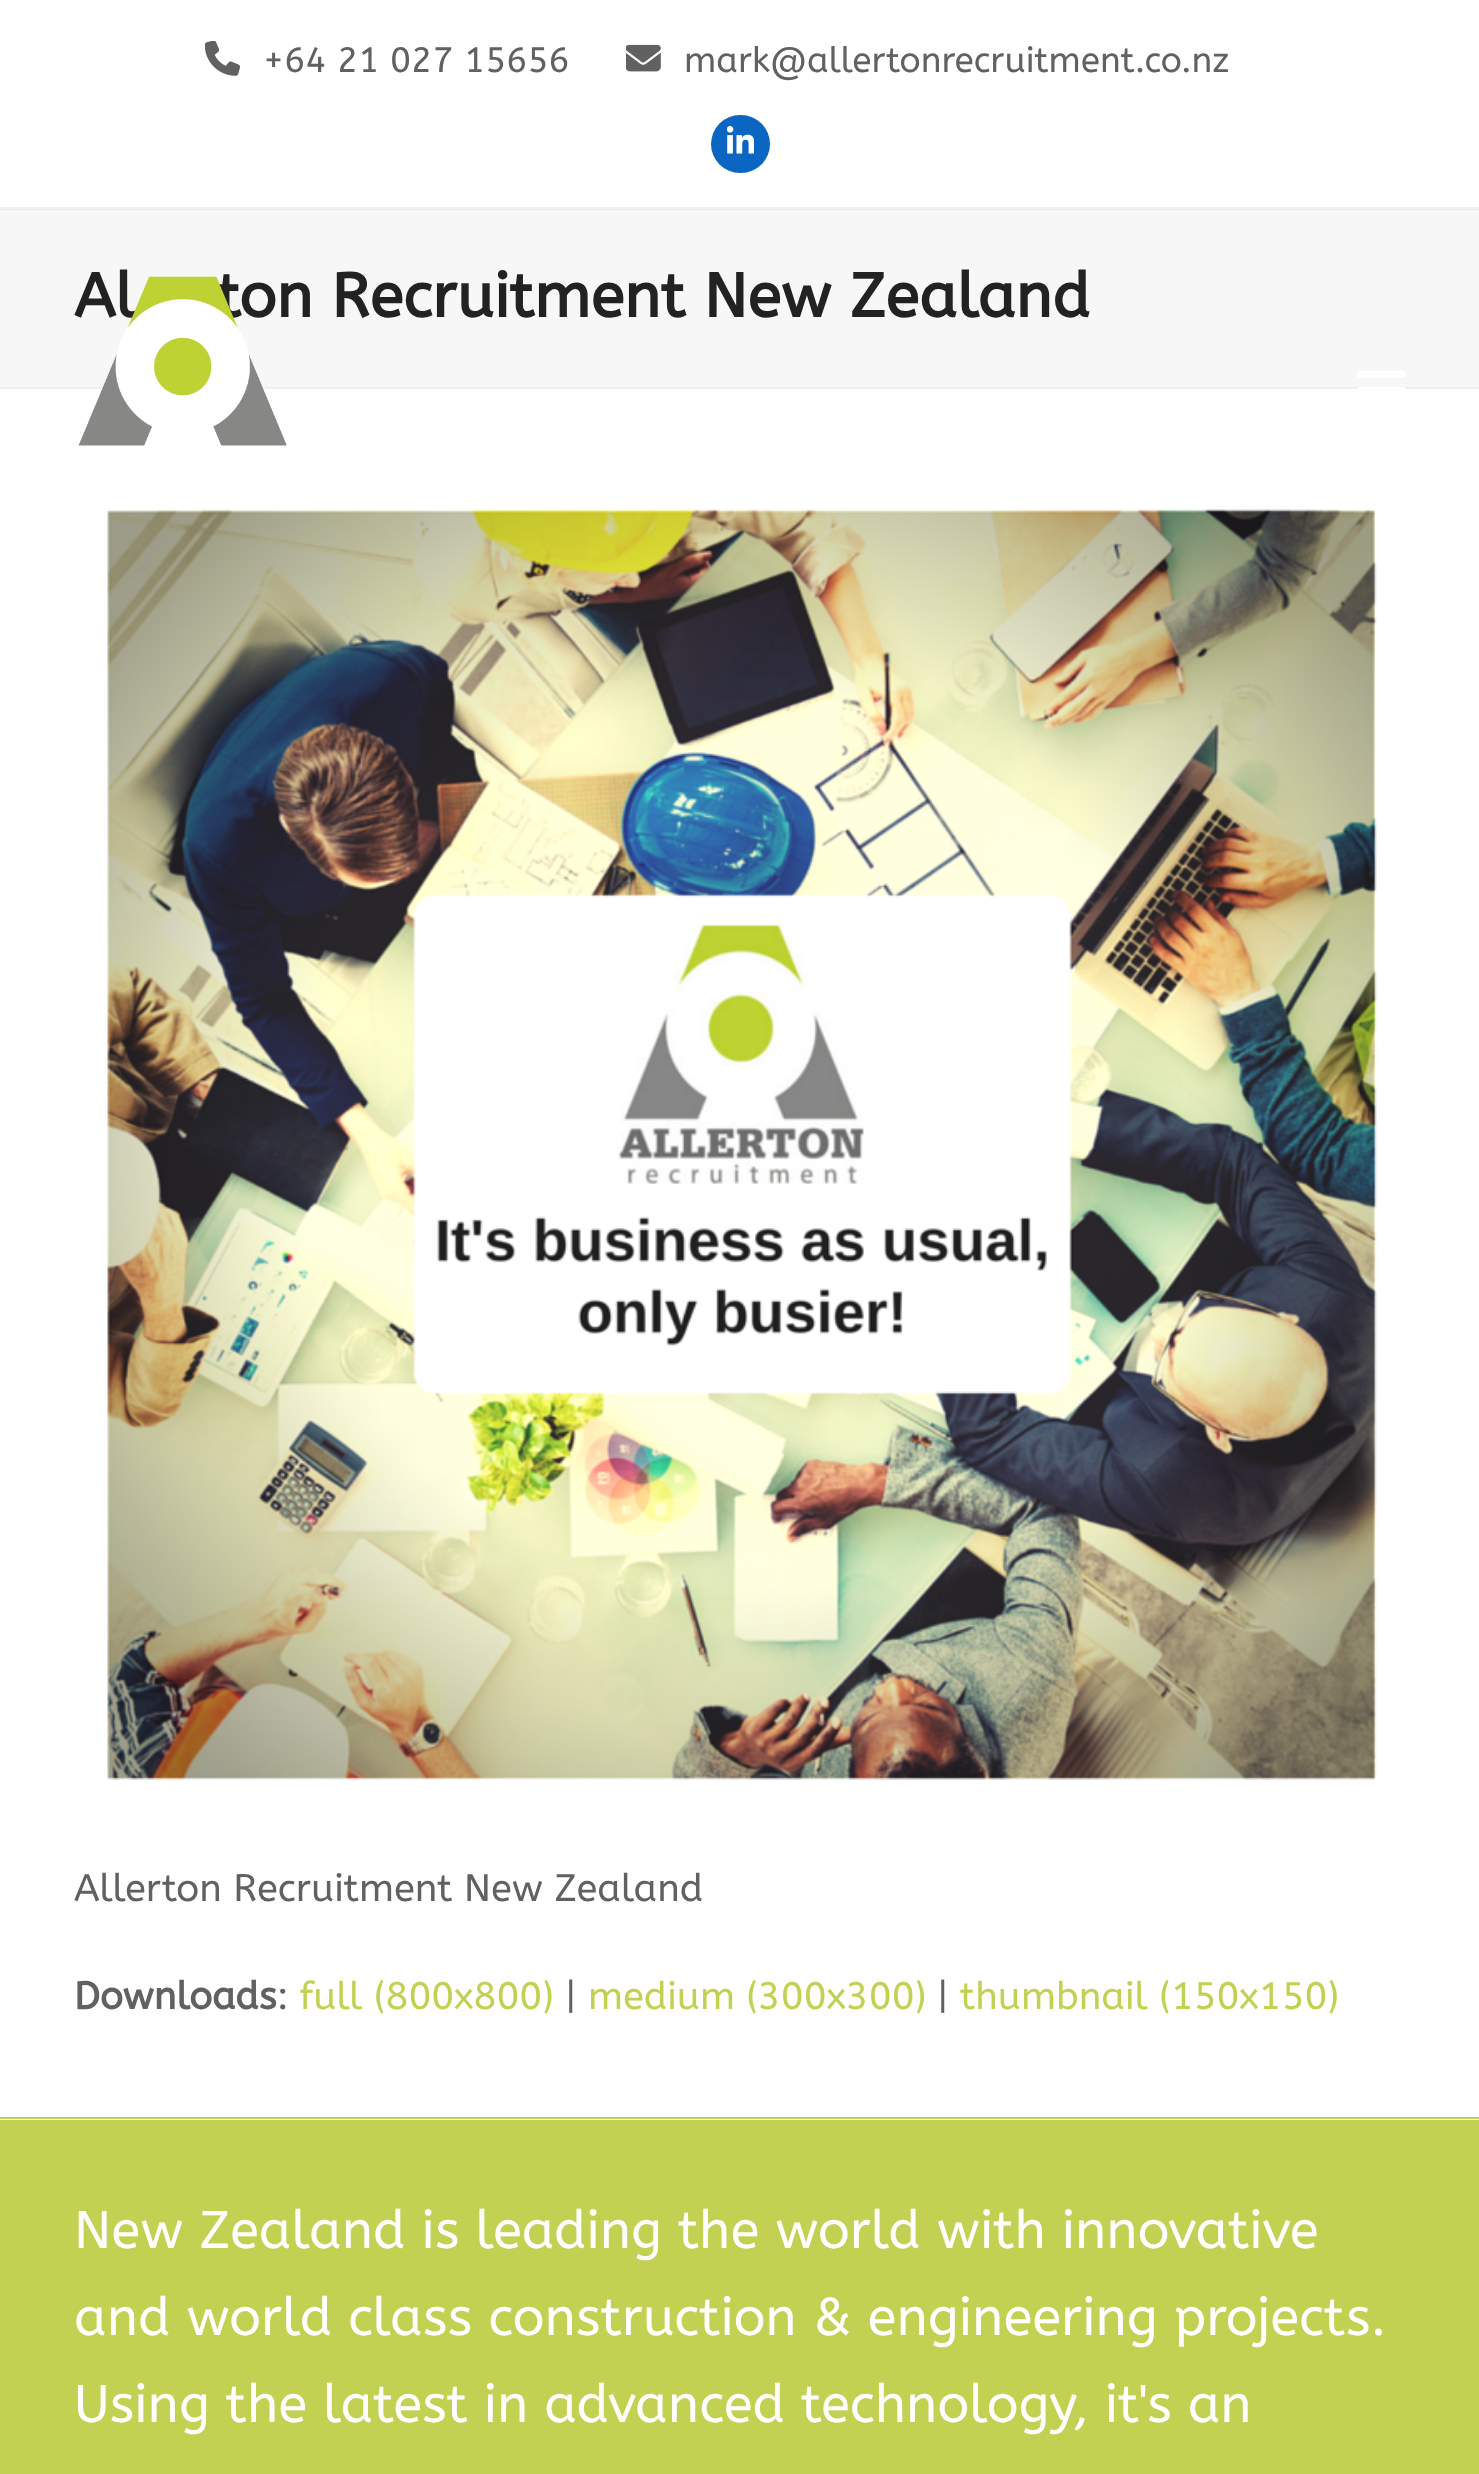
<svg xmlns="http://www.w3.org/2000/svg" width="1479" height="2474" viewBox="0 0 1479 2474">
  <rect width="100%" height="100%" fill="rgb(255,255,255)"/>
  <rect x="0" y="207" width="1479" height="4" fill="rgb(238,238,238)"/>
  <image x="205" y="41" width="35" height="35" href="pic1.png"/>
  <text x="263" y="72" font-family="ABeeZee" font-size="35.25" fill="rgb(97,97,97)">+64 21 027 15656</text>
  <image x="626" y="44" width="35" height="28" href="pic2.png"/>
  <text x="684" y="72" font-family="ABeeZee" font-size="35.25" fill="rgb(97,97,97)">mark@allertonrecruitment.co.nz</text>
  <rect x="711" y="115" width="59" height="58" rx="29" fill="rgb(10,102,194)"/>
  <image x="727" y="126" width="27" height="28" href="pic3.png"/>
  <rect x="0" y="212" width="1479" height="175" fill="rgb(247,247,247)"/>
  <rect x="0" y="387" width="1479" height="2" fill="rgb(238,238,238)"/>
  <g font-family="ABeeZee" font-size="61.75" font-weight="bold" fill="rgb(34,34,34)">
    <text x="74" y="317">Al</text>
    <text x="216" y="317">ton Recruitment New Zealand</text>
  </g>
  <image x="107" y="509" width="1270" height="1271" href="pic4.png"/>
  <text x="74" y="1901" font-family="ABeeZee" font-size="38.25" fill="rgb(97,97,97)">Allerton Recruitment New Zealand</text>
  <text x="74" y="2009" font-family="ABeeZee" font-size="38.25" font-weight="bold" fill="rgb(97,97,97)">Downloads</text>
  <text x="277" y="2009" font-family="ABeeZee" font-size="38.25" fill="rgb(97,97,97)">:</text>
  <text x="300" y="2009" font-family="ABeeZee" font-size="38.25" fill="rgb(195,209,83)">full (800x800)</text>
  <text x="565" y="2009" font-family="ABeeZee" font-size="38.25" fill="rgb(97,97,97)">|</text>
  <text x="588" y="2009" font-family="ABeeZee" font-size="38.25" fill="rgb(195,209,83)">medium (300x300)</text>
  <text x="937" y="2009" font-family="ABeeZee" font-size="38.25" fill="rgb(97,97,97)">|</text>
  <text x="960" y="2009" font-family="ABeeZee" font-size="38.25" fill="rgb(195,209,83)">thumbnail (150x150)</text>
  <image x="78" y="276" width="209" height="170" href="pic5.png"/>
  <rect x="1357" y="387" width="49" height="7" rx="3.5" fill="rgb(255,255,255)"/>
  <rect x="1357" y="371" width="49" height="7" rx="3.5" fill="rgb(255,255,255)"/>
  <rect x="0" y="2120" width="1479" height="354" fill="rgb(195,209,83)"/>
  <rect x="0" y="2117" width="1479" height="2" fill="rgb(195,209,83)"/>
  <g font-family="ABeeZee" font-size="53" fill="rgb(255,255,255)">
    <text>
      <tspan x="74" y="2248">New Zealand is leading the world with innovative</tspan>
      <tspan x="74" y="2335">and world class construction &amp; engineering projects.</tspan>
      <tspan x="74" y="2422">Using the latest in advanced technology, it's an</tspan>
    </text>
  </g>
</svg>
